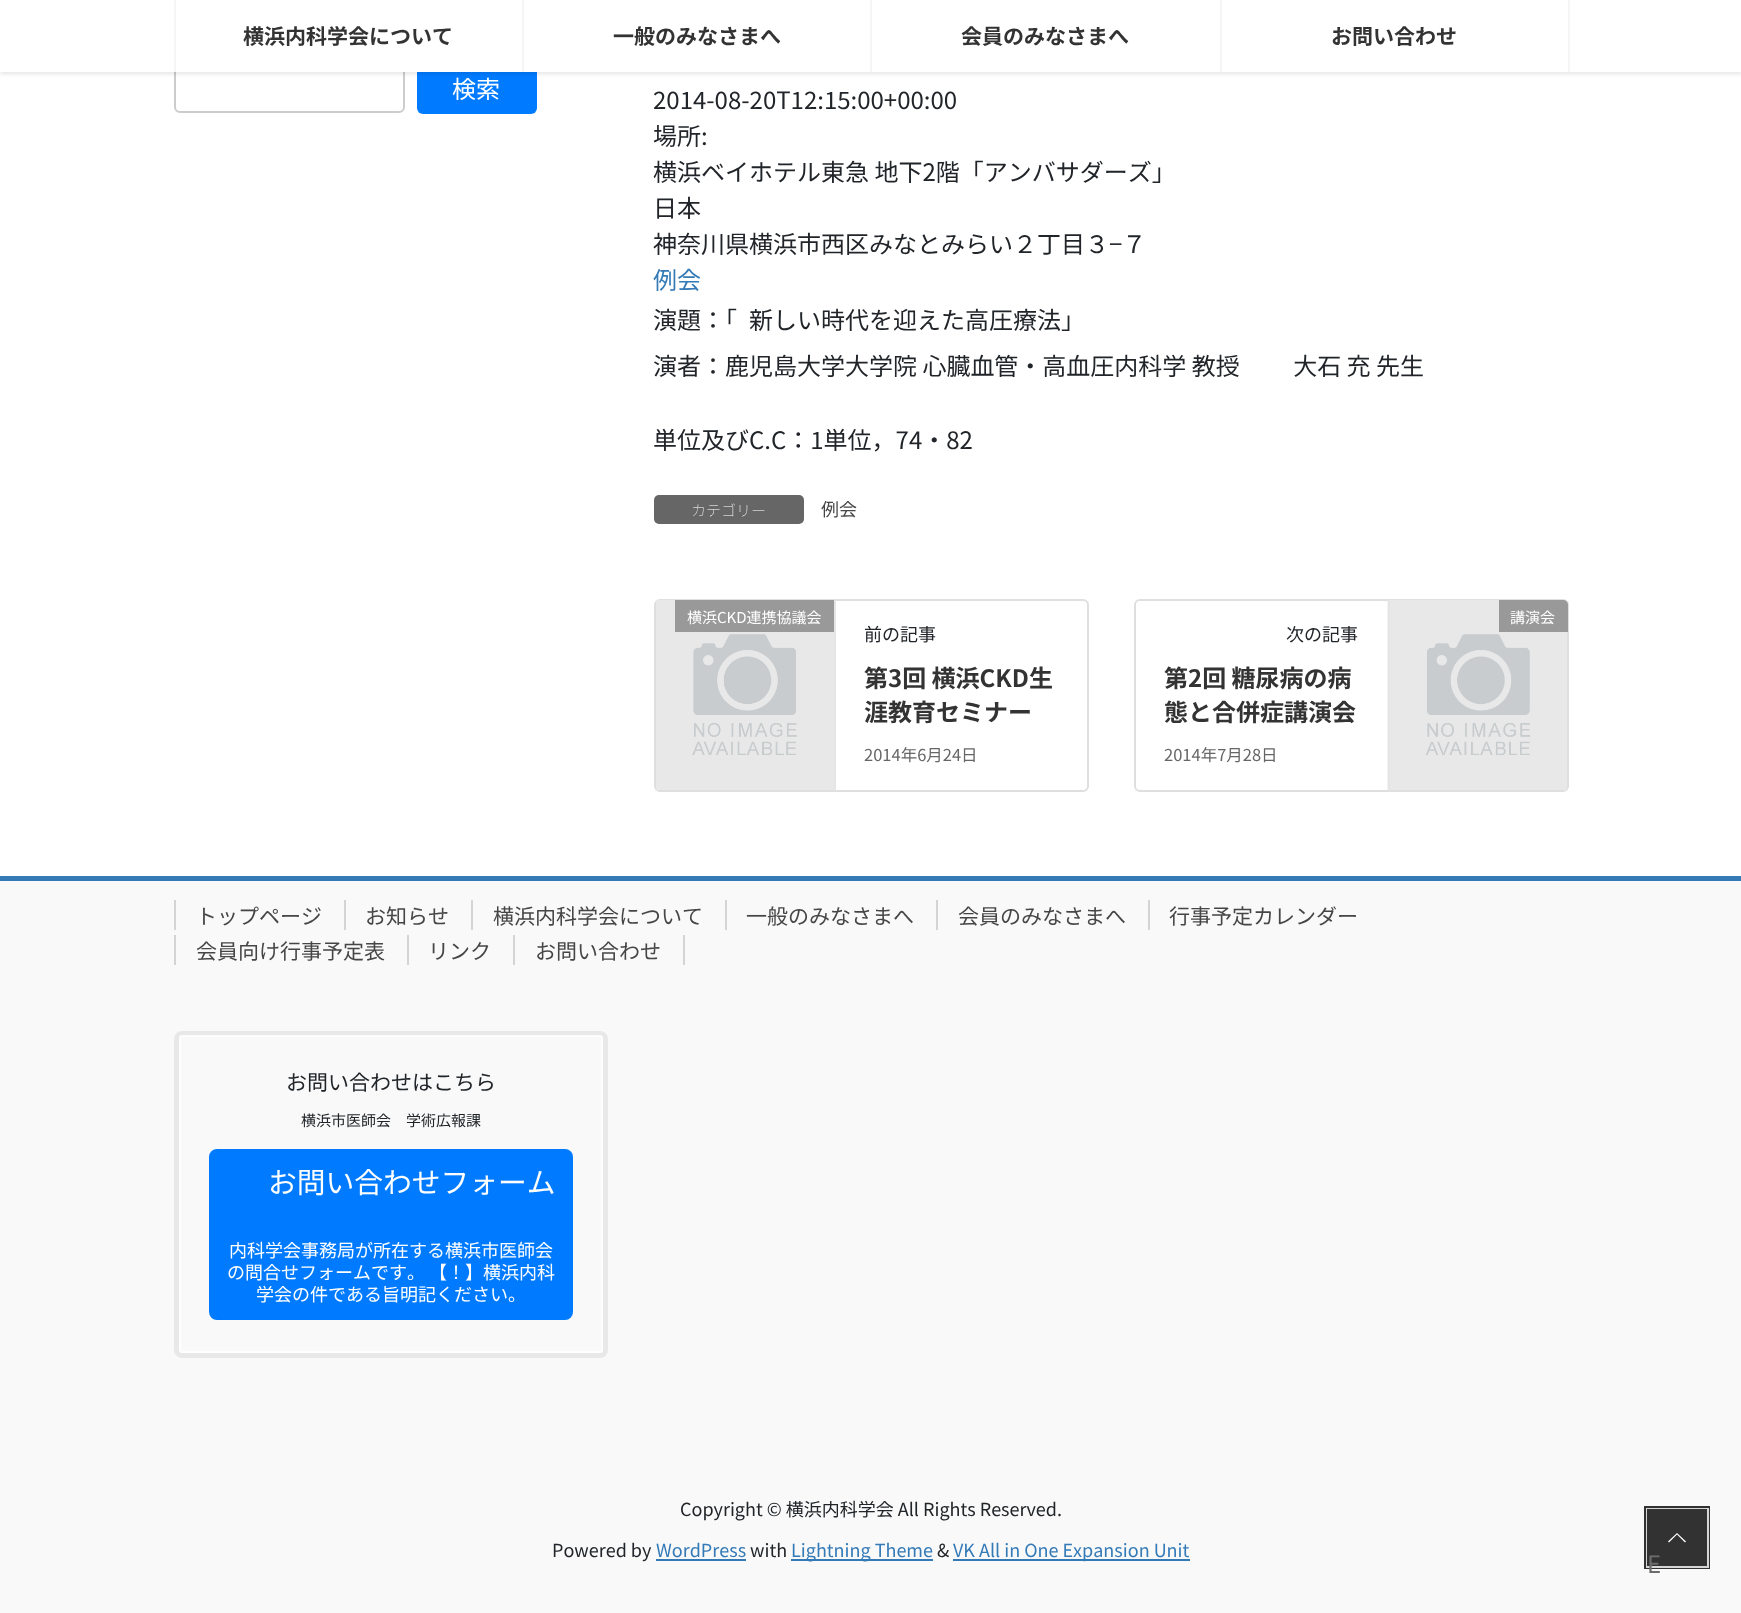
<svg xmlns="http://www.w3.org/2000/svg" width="1741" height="1613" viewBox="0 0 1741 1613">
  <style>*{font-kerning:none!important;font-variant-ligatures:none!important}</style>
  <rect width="100%" height="100%" fill="rgb(255,255,255)"/>
  <rect x="175" y="61" width="229" height="51" rx="5" fill="none" stroke="rgb(204,204,204)" stroke-width="2"/>
  <rect x="417" y="60" width="120" height="54" rx="6" fill="rgb(0,123,255)"/>
  <rect x="0" y="2" width="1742" height="72" fill="rgba(0,0,0,0.1)" filter="blur(2px)"/>
  <rect x="0" y="0" width="1741" height="72" fill="rgb(255,255,255)"/>
  <rect x="174" y="0" width="2" height="72" fill="rgb(245,245,245)"/>
  <text x="243" y="44" font-family="Noto Sans JP" font-size="21" font-weight="bold" fill="rgb(51,51,51)">横浜内科学会について</text>
  <rect x="522" y="0" width="2" height="72" fill="rgb(245,245,245)"/>
  <text x="613" y="44" font-family="Noto Sans JP" font-size="21" font-weight="bold" fill="rgb(51,51,51)">一般のみなさまへ</text>
  <rect x="870" y="0" width="2" height="72" fill="rgb(245,245,245)"/>
  <text x="961" y="44" font-family="Noto Sans JP" font-size="21" font-weight="bold" fill="rgb(51,51,51)">会員のみなさまへ</text>
  <rect x="1568" y="0" width="2" height="72" fill="rgb(245,245,245)"/>
  <rect x="1220" y="0" width="2" height="72" fill="rgb(245,245,245)"/>
  <text x="1331" y="44" font-family="Noto Sans JP" font-size="21" font-weight="bold" fill="rgb(51,51,51)">お問い合わせ</text>
  <text x="452" y="98" font-family="Noto Sans JP" font-size="24" fill="rgb(255,255,255)">検索</text>
  <g font-family="Noto Sans JP" font-size="24" fill="rgb(33,37,41)">
    <text>
      <tspan x="653" y="109">2014-08-20T12:15:00+00:00</tspan>
      <tspan x="653" y="145">場所:</tspan>
      <tspan x="653" y="181">横浜ベイホテル東急 地下2階「アンバサダーズ」</tspan>
      <tspan x="653" y="217">日本</tspan>
      <tspan x="653" y="253">神奈川県横浜市西区みなとみらい２丁目３−７</tspan>
    </text>
  </g>
  <text x="653" y="289" font-family="Noto Sans JP" font-size="24" fill="rgb(51,122,183)">例会</text>
  <g font-family="Noto Sans JP" font-size="24" fill="rgb(33,37,41)">
    <text x="653" y="329">演題：「</text>
    <text x="749" y="329">新しい時代を迎えた高圧療法」</text>
    <text x="653" y="375">演者：鹿児島大学大学院 心臓血管・高血圧内科学 教授 　　大石 充 先生</text>
    <text x="653" y="449">単位及びC.C：1単位，74・82</text>
  </g>
  <rect x="654" y="495" width="150" height="29" rx="5" fill="rgb(102,102,102)"/>
  <text x="691" y="516" font-family="Noto Sans JP" font-size="15" font-weight="100" fill="rgb(255,255,255)">カテゴリー</text>
  <text x="821" y="516" font-family="Noto Sans JP" font-size="18" fill="rgb(70,70,70)">例会</text>
  <rect x="655" y="600" width="433" height="191" rx="5" fill="none" stroke="rgb(223,223,223)" stroke-width="2"/>
  <image x="656" y="600" width="178" height="190" href="pic1.png"/>
  <rect x="834" y="600" width="2" height="191" fill="rgb(229,229,229)"/>
  <rect x="675" y="600" width="159" height="32" fill="rgb(153,153,153)"/>
  <text x="687" y="623" font-family="Noto Sans JP" font-size="15" fill="rgb(255,255,255)">横浜CKD連携協議会</text>
  <text x="864" y="641" font-family="Noto Sans JP" font-size="18" fill="rgb(33,37,41)">前の記事</text>
  <g font-family="Noto Sans JP" font-size="24" font-weight="bold" fill="rgb(51,51,51)">
    <text>
      <tspan x="864" y="687">第3回 横浜CKD生</tspan>
      <tspan x="864" y="721">涯教育セミナー</tspan>
    </text>
  </g>
  <text x="864" y="761" font-family="Noto Sans JP" font-size="16.5" fill="rgb(102,102,102)">2014年6月24日</text>
  <rect x="1135" y="600" width="433" height="191" rx="5" fill="none" stroke="rgb(223,223,223)" stroke-width="2"/>
  <image x="1387" y="600" width="180" height="190" href="pic2.png"/>
  <rect x="1388" y="600" width="2" height="191" fill="rgb(229,229,229)"/>
  <path d="M1499 600H1563C1566 600 1568 602 1568 605V632H1499Z" fill="rgb(153,153,153)"/>
  <text x="1510" y="623" font-family="Noto Sans JP" font-size="15" fill="rgb(255,255,255)">講演会</text>
  <text x="1286" y="641" font-family="Noto Sans JP" font-size="18" fill="rgb(33,37,41)">次の記事</text>
  <g font-family="Noto Sans JP" font-size="24" font-weight="bold" fill="rgb(51,51,51)">
    <text>
      <tspan x="1164" y="687">第2回 糖尿病の病</tspan>
      <tspan x="1164" y="721">態と合併症講演会</tspan>
    </text>
  </g>
  <text x="1164" y="761" font-family="Noto Sans JP" font-size="16.5" fill="rgb(102,102,102)">2014年7月28日</text>
  <rect x="0" y="881" width="1741" height="732" fill="rgb(249,249,249)"/>
  <rect x="0" y="876" width="1741" height="5" fill="rgb(51,122,183)"/>
  <text x="196" y="924" font-family="Noto Sans JP" font-size="21" fill="rgb(70,70,70)">トップページ</text>
  <rect x="174" y="900" width="2" height="30" fill="rgb(212,212,212)"/>
  <text x="365" y="924" font-family="Noto Sans JP" font-size="21" fill="rgb(70,70,70)">お知らせ</text>
  <rect x="344" y="900" width="2" height="30" fill="rgb(212,212,212)"/>
  <text x="493" y="924" font-family="Noto Sans JP" font-size="21" fill="rgb(70,70,70)">横浜内科学会について</text>
  <rect x="471" y="900" width="2" height="30" fill="rgb(212,212,212)"/>
  <text x="746" y="924" font-family="Noto Sans JP" font-size="21" fill="rgb(70,70,70)">一般のみなさまへ</text>
  <rect x="725" y="900" width="2" height="30" fill="rgb(212,212,212)"/>
  <text x="958" y="924" font-family="Noto Sans JP" font-size="21" fill="rgb(70,70,70)">会員のみなさまへ</text>
  <rect x="936" y="900" width="2" height="30" fill="rgb(212,212,212)"/>
  <text x="1169" y="924" font-family="Noto Sans JP" font-size="21" fill="rgb(70,70,70)">行事予定カレンダー</text>
  <rect x="1148" y="900" width="2" height="30" fill="rgb(212,212,212)"/>
  <text x="196" y="959" font-family="Noto Sans JP" font-size="21" fill="rgb(70,70,70)">会員向け行事予定表</text>
  <rect x="174" y="935" width="2" height="30" fill="rgb(212,212,212)"/>
  <text x="428" y="959" font-family="Noto Sans JP" font-size="21" fill="rgb(70,70,70)">リンク</text>
  <rect x="407" y="935" width="2" height="30" fill="rgb(212,212,212)"/>
  <text x="535" y="959" font-family="Noto Sans JP" font-size="21" fill="rgb(70,70,70)">お問い合わせ</text>
  <rect x="683" y="935" width="2" height="30" fill="rgb(212,212,212)"/>
  <rect x="513" y="935" width="2" height="30" fill="rgb(212,212,212)"/>
  <rect x="176.5" y="1033.5" width="429" height="322" rx="5.5" fill="none" stroke="rgb(232,232,232)" stroke-width="5"/>
  <path d="M182 1035C180 1035 179 1036 179 1038V1350C179 1352 180 1353 182 1353H600C602 1353 603 1352 603 1350V1038C603 1036 602 1035 600 1035ZM181 1037V1351H601V1037Z" fill="rgba(255,255,255,0.8)" fill-rule="evenodd"/>
  <text x="286" y="1090" font-family="Noto Sans JP" font-size="21" fill="rgb(33,37,41)">お問い合わせはこちら</text>
  <text x="301" y="1126" font-family="Noto Sans JP" font-size="15" fill="rgb(33,37,41)">横浜市医師会　学術広報課</text>
  <rect x="210" y="1150" width="362" height="169" rx="7" fill="rgb(0,123,255)" stroke="rgb(0,123,255)" stroke-width="2"/>
  <text x="268" y="1193" font-family="Noto Sans JP" font-size="28.75" fill="rgb(255,255,255)">お問い合わせフォーム</text>
  <g font-family="Noto Sans JP" font-size="18" fill="rgb(255,255,255)">
    <text x="229" y="1257">内科学会事務局が所在する横浜市医師会</text>
    <text x="227" y="1279">の問合せフォームです。 【！】横浜内科</text>
    <text x="256" y="1301">学会の件である旨明記ください。</text>
  </g>
  <g font-family="Noto Sans JP" font-size="18" fill="rgb(33,37,41)">
    <text x="680" y="1516">Copyright © 横浜内科学会 All Rights Reserved.</text>
    <text x="552" y="1557">Powered by</text>
  </g>
  <text x="656" y="1557" font-family="Noto Sans JP" font-size="18" fill="rgb(51,122,183)">WordPress</text>
  <rect x="656" y="1559" width="90" height="2" fill="rgb(51,122,183)"/>
  <text x="750" y="1557" font-family="Noto Sans JP" font-size="18" fill="rgb(33,37,41)">with</text>
  <rect x="791" y="1559" width="142" height="2" fill="rgb(51,122,183)"/>
  <text x="791" y="1557" font-family="Noto Sans JP" font-size="18" fill="rgb(51,122,183)">Lightning Theme</text>
  <text x="937" y="1557" font-family="Noto Sans JP" font-size="18" fill="rgb(33,37,41)">&amp;</text>
  <rect x="953" y="1559" width="237" height="2" fill="rgb(51,122,183)"/>
  <text x="953" y="1557" font-family="Noto Sans JP" font-size="18" fill="rgb(51,122,183)">VK All in One Expansion Unit</text>
  <rect x="1645.5" y="1507.5" width="63" height="60" fill="none" stroke="rgb(50,50,50)" stroke-width="3"/>
  <rect x="1647" y="1509" width="61" height="58" fill="none" stroke="rgba(255,255,255,0.8)" stroke-width="2"/>
  <rect x="1647" y="1509" width="60" height="57" fill="rgba(0,0,0,0.8)"/>
  <path d="M1686 1541.5L1685 1542.5L1677 1534.5L1669 1542.5L1668 1541.5L1677 1533Z" fill="rgb(255,255,255)"/>
  <text x="1647" y="1573" font-family="Noto Sans JP" font-size="24" fill="rgb(108,108,108)">E</text>
</svg>
